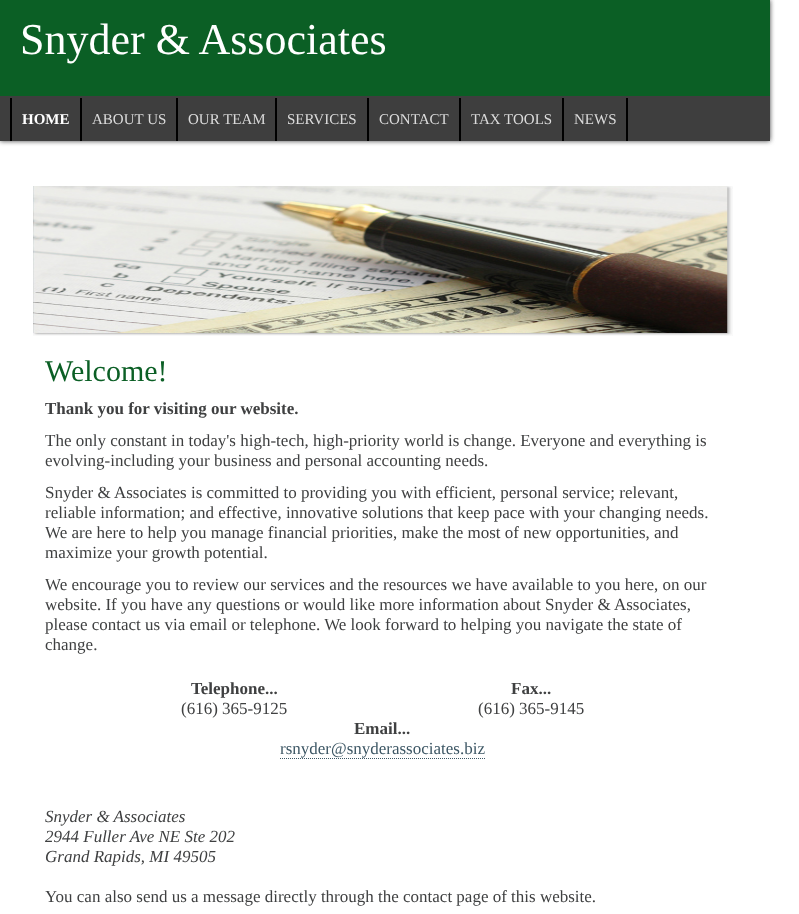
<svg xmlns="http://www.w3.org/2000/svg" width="799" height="914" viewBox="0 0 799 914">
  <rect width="100%" height="100%" fill="rgb(255,255,255)"/>
  <rect x="0" y="0" width="770" height="141" fill="rgb(63,64,65)" filter="blur(2.5px)"/>
  <rect x="0" y="0" width="770" height="96" fill="rgb(11,95,37)"/>
  <rect x="0" y="96" width="770" height="45" fill="rgb(62,62,62)"/>
  <text x="20" y="54" font-family="Liberation Serif" font-size="44" fill="rgb(255,255,255)">Snyder &amp; Associates</text>
  <rect x="80" y="98" width="2" height="43" fill="rgb(0,0,0)"/>
  <rect x="10" y="98" width="2" height="43" fill="rgb(0,0,0)"/>
  <text x="22" y="124" font-family="Liberation Serif" font-size="15" font-weight="bold" fill="rgb(255,255,255)">HOME</text>
  <rect x="176" y="98" width="2" height="43" fill="rgb(0,0,0)"/>
  <text x="92" y="124" font-family="Liberation Serif" font-size="15" fill="rgb(220,220,220)">ABOUT US</text>
  <rect x="275" y="98" width="2" height="43" fill="rgb(0,0,0)"/>
  <text x="188" y="124" font-family="Liberation Serif" font-size="15" fill="rgb(220,220,220)">OUR TEAM</text>
  <rect x="367" y="98" width="2" height="43" fill="rgb(0,0,0)"/>
  <text x="287" y="124" font-family="Liberation Serif" font-size="15" fill="rgb(220,220,220)">SERVICES</text>
  <rect x="459" y="98" width="2" height="43" fill="rgb(0,0,0)"/>
  <text x="379" y="124" font-family="Liberation Serif" font-size="15" fill="rgb(220,220,220)">CONTACT</text>
  <rect x="562" y="98" width="2" height="43" fill="rgb(0,0,0)"/>
  <text x="471" y="124" font-family="Liberation Serif" font-size="15" fill="rgb(220,220,220)">TAX TOOLS</text>
  <rect x="626" y="98" width="2" height="43" fill="rgb(0,0,0)"/>
  <text x="574" y="124" font-family="Liberation Serif" font-size="15" fill="rgb(220,220,220)">NEWS</text>
  <image x="33" y="186" width="700" height="150" href="pic1.png"/>
  <text x="45" y="381" font-family="Liberation Serif" font-size="30" fill="rgb(11,95,37)">Welcome!</text>
  <text x="45" y="414" font-family="Liberation Serif" font-size="17" font-weight="bold" fill="rgb(63,64,65)">Thank you for visiting our website.</text>
  <g font-family="Liberation Serif" font-size="17" fill="rgb(63,64,65)">
    <text>
      <tspan x="45" y="446">The only constant in today's high-tech, high-priority world is change. Everyone and everything is</tspan>
      <tspan x="45" y="466">evolving-including your business and personal accounting needs.</tspan>
      <tspan x="45" y="498">Snyder &amp; Associates is committed to providing you with efficient, personal service; relevant,</tspan>
      <tspan x="45" y="518">reliable information; and effective, innovative solutions that keep pace with your changing needs.</tspan>
      <tspan x="45" y="538">We are here to help you manage financial priorities, make the most of new opportunities, and</tspan>
      <tspan x="45" y="558">maximize your growth potential.</tspan>
      <tspan x="45" y="590">We encourage you to review our services and the resources we have available to you here, on our</tspan>
      <tspan x="45" y="610">website. If you have any questions or would like more information about Snyder &amp; Associates,</tspan>
      <tspan x="45" y="630">please contact us via email or telephone. We look forward to helping you navigate the state of</tspan>
      <tspan x="45" y="650">change.</tspan>
    </text>
  </g>
  <text x="191" y="694" font-family="Liberation Serif" font-size="17" font-weight="bold" fill="rgb(63,64,65)">Telephone...</text>
  <text x="181" y="714" font-family="Liberation Serif" font-size="17" fill="rgb(63,64,65)">(616) 365-9125</text>
  <text x="511" y="694" font-family="Liberation Serif" font-size="17" font-weight="bold" fill="rgb(63,64,65)">Fax...</text>
  <text x="478" y="714" font-family="Liberation Serif" font-size="17" fill="rgb(63,64,65)">(616) 365-9145</text>
  <text x="354" y="734" font-family="Liberation Serif" font-size="17" font-weight="bold" fill="rgb(63,64,65)">Email...</text>
  <text x="280" y="754" font-family="Liberation Serif" font-size="17" fill="rgb(60,86,100)">rsnyder@snyderassociates.biz</text>
  <path d="M280 758.5H485" fill="none" stroke="rgb(60,86,100)" stroke-dasharray="1 1"/>
  <g font-family="Liberation Serif" font-size="17" font-style="italic" fill="rgb(63,64,65)">
    <text>
      <tspan x="45" y="822">Snyder &amp; Associates</tspan>
      <tspan x="45" y="842">2944 Fuller Ave NE Ste 202</tspan>
      <tspan x="45" y="862">Grand Rapids, MI 49505</tspan>
    </text>
  </g>
  <text x="45" y="902" font-family="Liberation Serif" font-size="17" fill="rgb(63,64,65)">You can also send us a message directly through the contact page of this website.</text>
</svg>
